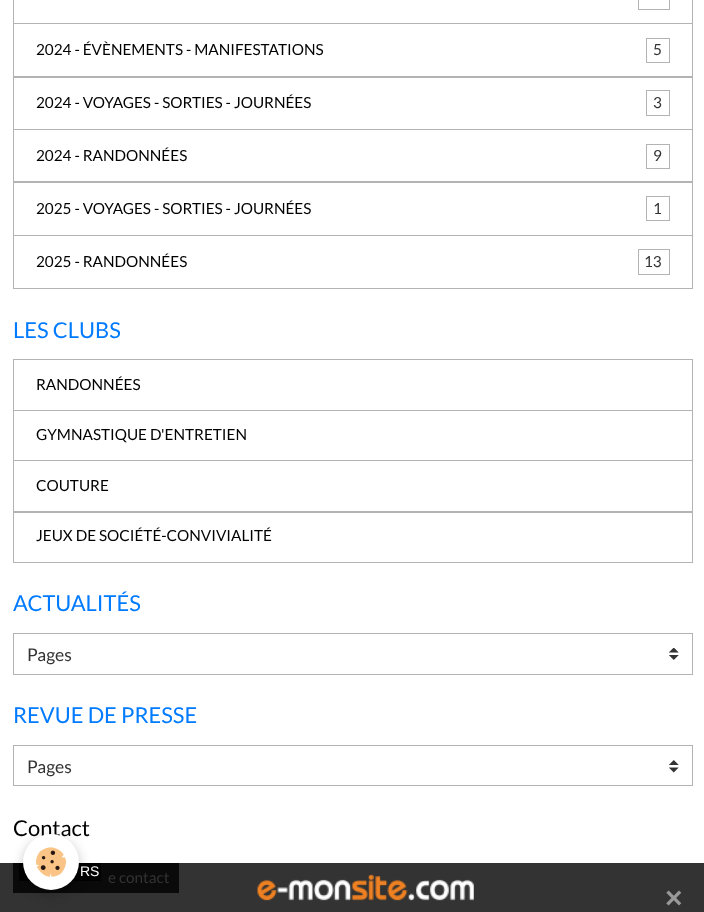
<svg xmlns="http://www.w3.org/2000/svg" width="704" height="912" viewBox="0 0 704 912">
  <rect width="100%" height="100%" fill="rgb(255,255,255)"/>
  <rect x="0" y="863" width="704" height="49" fill="rgb(51,51,51)"/>
  <rect x="13.5" y="-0.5" width="679" height="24" fill="none" stroke="rgb(179,179,179)"/>
  <rect x="638.5" y="-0.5" width="31" height="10" fill="none" stroke="rgb(179,179,179)"/>
  <rect x="13.5" y="23.5" width="679" height="54" fill="none" stroke="rgb(179,179,179)"/>
  <text x="36" y="55" font-family="Lato" font-size="15.3" fill="rgb(0,0,0)">2024 - ÉVÈNEMENTS - MANIFESTATIONS</text>
  <rect x="646.5" y="38.5" width="23" height="24" fill="none" stroke="rgb(179,179,179)"/>
  <text x="653" y="55" font-family="Lato" font-size="15.3" fill="rgb(51,51,51)">5</text>
  <rect x="13.5" y="76.5" width="679" height="53" fill="none" stroke="rgb(179,179,179)"/>
  <text x="36" y="108" font-family="Lato" font-size="15.3" fill="rgb(0,0,0)">2024 - VOYAGES - SORTIES - JOURNÉES</text>
  <rect x="646.5" y="90.5" width="23" height="25" fill="none" stroke="rgb(179,179,179)"/>
  <text x="653" y="108" font-family="Lato" font-size="15.3" fill="rgb(51,51,51)">3</text>
  <rect x="13.5" y="129.5" width="679" height="53" fill="none" stroke="rgb(179,179,179)"/>
  <text x="36" y="161" font-family="Lato" font-size="15.3" fill="rgb(0,0,0)">2024 - RANDONNÉES</text>
  <rect x="646.5" y="144.5" width="23" height="24" fill="none" stroke="rgb(179,179,179)"/>
  <text x="653" y="161" font-family="Lato" font-size="15.3" fill="rgb(51,51,51)">9</text>
  <rect x="13.5" y="181.5" width="679" height="54" fill="none" stroke="rgb(179,179,179)"/>
  <text x="36" y="214" font-family="Lato" font-size="15.3" fill="rgb(0,0,0)">2025 - VOYAGES - SORTIES - JOURNÉES</text>
  <rect x="646.5" y="196.5" width="23" height="24" fill="none" stroke="rgb(179,179,179)"/>
  <text x="653" y="214" font-family="Lato" font-size="15.3" fill="rgb(51,51,51)">1</text>
  <rect x="13.5" y="235.5" width="679" height="53" fill="none" stroke="rgb(179,179,179)"/>
  <text x="36" y="267" font-family="Lato" font-size="15.3" fill="rgb(0,0,0)">2025 - RANDONNÉES</text>
  <rect x="638.5" y="249.5" width="31" height="25" fill="none" stroke="rgb(179,179,179)"/>
  <text x="644" y="267" font-family="Lato" font-size="15.3" fill="rgb(51,51,51)">13</text>
  <text x="13" y="338" font-family="Lato" font-size="21.9" fill="rgb(0,123,255)">LES CLUBS</text>
  <rect x="13.5" y="359.5" width="679" height="51" fill="none" stroke="rgb(179,179,179)"/>
  <text x="36" y="390" font-family="Lato" font-size="15.3" fill="rgb(0,0,0)">RANDONNÉES</text>
  <rect x="13.5" y="410.5" width="679" height="50" fill="none" stroke="rgb(179,179,179)"/>
  <text x="36" y="440" font-family="Lato" font-size="15.3" fill="rgb(0,0,0)">GYMNASTIQUE D'ENTRETIEN</text>
  <rect x="13.5" y="460.5" width="679" height="52" fill="none" stroke="rgb(179,179,179)"/>
  <text x="36" y="491" font-family="Lato" font-size="15.3" fill="rgb(0,0,0)">COUTURE</text>
  <rect x="13.5" y="511.5" width="679" height="51" fill="none" stroke="rgb(179,179,179)"/>
  <text x="36" y="541" font-family="Lato" font-size="15.3" fill="rgb(0,0,0)">JEUX DE SOCIÉTÉ-CONVIVIALITÉ</text>
  <text x="13" y="611" font-family="Lato" font-size="21.9" fill="rgb(0,123,255)">ACTUALITÉS</text>
  <image x="669" y="648" width="10" height="12" href="pic1.png"/>
  <rect x="13.5" y="633.5" width="679" height="41" fill="none" stroke="rgb(179,179,179)"/>
  <text x="27" y="661" font-family="Lato" font-size="17.5" fill="rgb(51,51,51)">Pages</text>
  <text x="13" y="723" font-family="Lato" font-size="21.9" fill="rgb(0,123,255)">REVUE DE PRESSE</text>
  <image x="669" y="760" width="10" height="13" href="pic2.png"/>
  <rect x="13.5" y="745.5" width="679" height="40" fill="none" stroke="rgb(179,179,179)"/>
  <text x="27" y="773" font-family="Lato" font-size="17.5" fill="rgb(51,51,51)">Pages</text>
  <text x="13" y="836" font-family="Lato" font-size="21.9" fill="rgb(0,0,0)">Contact</text>
  <rect x="13" y="863" width="166" height="30" fill="rgb(10,10,10)"/>
  <text x="108" y="883" font-family="Lato" font-size="15.3" fill="rgb(51,51,51)">e contact</text>
  <rect x="19" y="863" width="82" height="18" fill="rgb(0,0,0)"/>
  <rect x="23" y="838" width="56" height="56" rx="28" fill="rgba(0,0,0,0.24)" filter="blur(6px)"/>
  <circle cx="51" cy="862" r="28" fill="rgb(255,255,255)"/>
  <image x="36" y="847" width="30" height="30" href="pic3.png"/>
  <text x="80" y="876" font-family="Liberation Sans" font-size="14" fill="rgb(255,255,255)">RS</text>
  <image x="257" y="874" width="217" height="27" href="pic4.png"/>
  <text x="665" y="908" font-family="Liberation Sans" font-size="30" font-weight="bold" fill="rgb(153,153,153)">×</text>
</svg>
